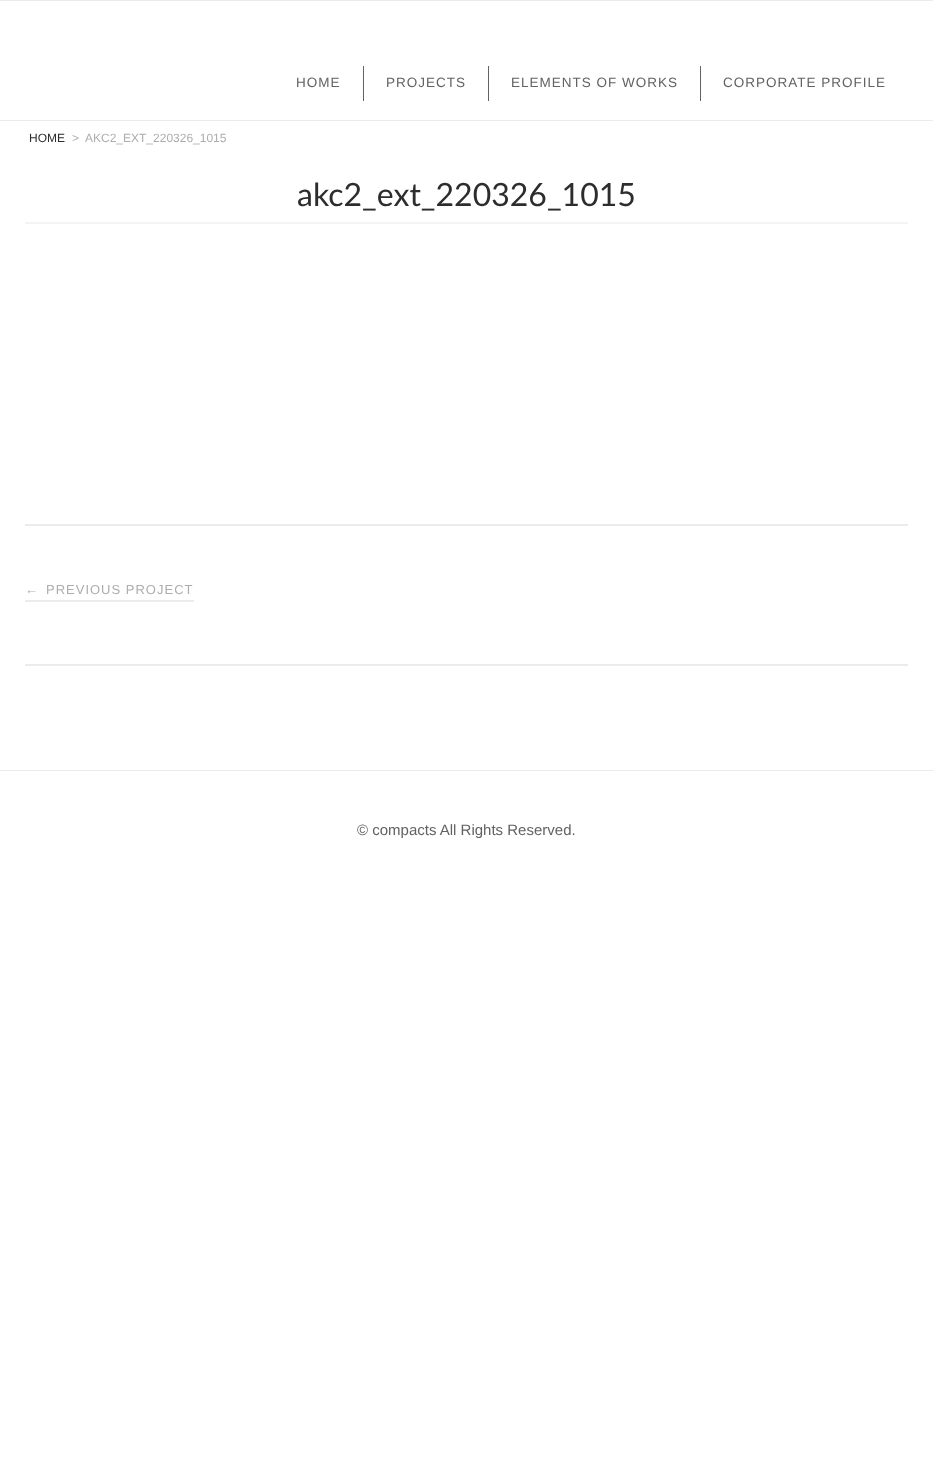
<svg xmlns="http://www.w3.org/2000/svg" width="933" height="1481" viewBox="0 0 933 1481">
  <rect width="100%" height="100%" fill="rgb(255,255,255)"/>
  <rect x="0" y="120" width="933" height="1" fill="rgb(235,235,235)"/>
  <rect x="0" y="0" width="933" height="1" fill="rgb(235,235,235)"/>
  <rect x="363" y="66" width="1" height="35" fill="rgb(98,98,98)"/>
  <text x="296" y="87" font-family="Liberation Sans" font-size="13.5" letter-spacing="1" fill="rgb(98,98,98)">HOME</text>
  <rect x="488" y="66" width="1" height="35" fill="rgb(98,98,98)"/>
  <text x="386" y="87" font-family="Liberation Sans" font-size="13.5" letter-spacing="1" fill="rgb(98,98,98)">PROJECTS</text>
  <rect x="700" y="66" width="1" height="35" fill="rgb(98,98,98)"/>
  <g font-family="Liberation Sans" font-size="13.5" letter-spacing="1" fill="rgb(98,98,98)">
    <text x="511" y="87">ELEMENTS OF WORKS</text>
    <text x="723" y="87">CORPORATE PROFILE</text>
  </g>
  <text x="29" y="142" font-family="Liberation Sans" font-size="12" fill="rgb(45,45,45)">HOME</text>
  <g font-family="Liberation Sans" font-size="12" fill="rgb(173,173,173)">
    <text x="72" y="142">&gt;</text>
    <text x="85" y="142">AKC2_EXT_220326_1015</text>
  </g>
  <rect x="25" y="222" width="883" height="2" fill="rgb(244,244,244)"/>
  <text x="297" y="206" font-family="Lato" font-size="32" fill="rgb(45,45,45)">akc2_ext_220326_1015</text>
  <rect x="25" y="524" width="883" height="2" fill="rgb(235,235,235)"/>
  <rect x="25" y="664" width="883" height="2" fill="rgb(235,235,235)"/>
  <rect x="25" y="600" width="169" height="2" fill="rgb(235,235,235)"/>
  <g font-family="Liberation Sans" font-size="13" letter-spacing="1" fill="rgb(173,173,173)">
    <text x="25" y="594">←</text>
    <text x="46" y="594">PREVIOUS PROJECT</text>
  </g>
  <rect x="0" y="770" width="933" height="1" fill="rgb(235,235,235)"/>
  <text x="357" y="835" font-family="Liberation Sans" font-size="15" fill="rgb(98,98,98)">© compacts All Rights Reserved.</text>
</svg>
